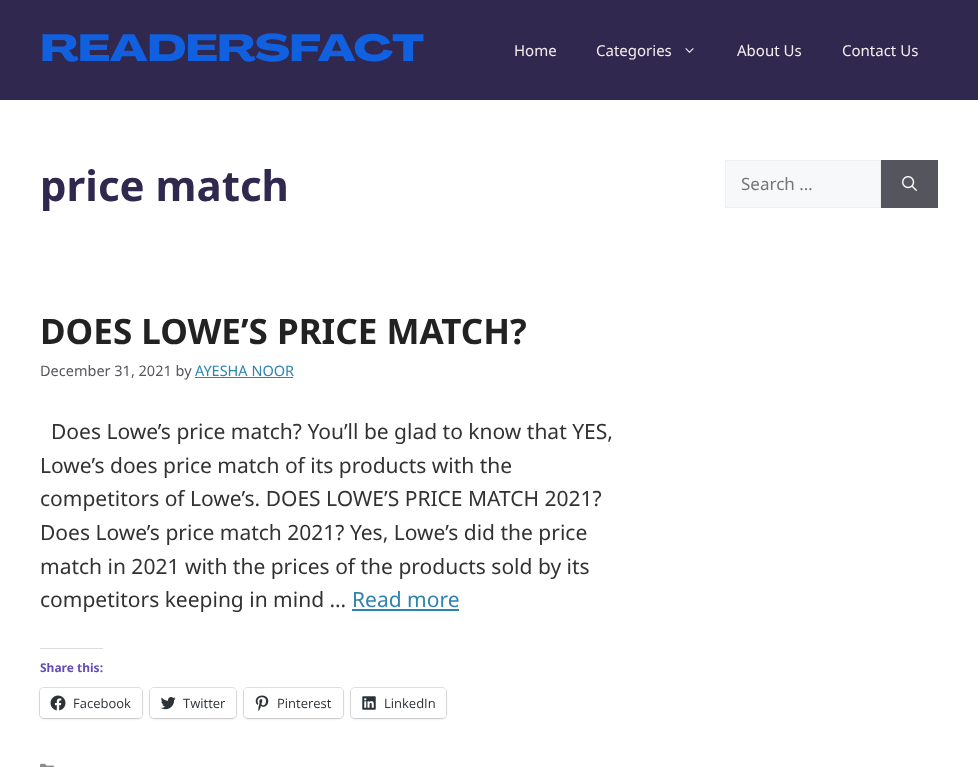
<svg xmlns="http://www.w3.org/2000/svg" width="978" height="767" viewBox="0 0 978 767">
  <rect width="100%" height="100%" fill="rgb(255,255,255)"/>
  <rect x="0" y="0" width="978" height="100" fill="rgb(48,40,78)"/>
  <image x="42" y="33" width="382" height="29" href="pic1.png"/>
  <g font-family="Noto Sans" font-size="15" fill="rgb(245,238,238)">
    <text x="514" y="56">Home</text>
    <text x="596" y="56">Categories</text>
  </g>
  <image x="685" y="48" width="9" height="5" href="pic2.png"/>
  <g font-family="Noto Sans" font-size="15" fill="rgb(245,238,238)">
    <text x="737" y="56">About Us</text>
    <text x="842" y="56">Contact Us</text>
  </g>
  <text x="40" y="201" font-family="Noto Sans" font-size="42" font-weight="bold" fill="rgb(48,40,78)">price match</text>
  <text x="40" y="344" font-family="Noto Sans" font-size="35" font-weight="bold" fill="rgb(34,34,34)">DOES LOWE’S PRICE MATCH?</text>
  <text x="40" y="376" font-family="Noto Sans" font-size="14.5" fill="rgb(87,87,96)">December 31, 2021 by</text>
  <text x="195" y="376" font-family="Noto Sans" font-size="14.5" fill="rgb(45,132,175)">AYESHA NOOR</text>
  <rect x="195" y="377" width="98" height="1" fill="rgb(45,132,175)"/>
  <g font-family="Noto Sans" font-size="21" fill="rgb(50,50,50)">
    <text x="51" y="439">Does Lowe’s price match? You’ll be glad to know that YES,</text>
    <text>
      <tspan x="40" y="473">Lowe’s does price match of its products with the</tspan>
      <tspan x="40" y="506">competitors of Lowe’s. DOES LOWE’S PRICE MATCH 2021?</tspan>
      <tspan x="40" y="540">Does Lowe’s price match 2021? Yes, Lowe’s did the price</tspan>
      <tspan x="40" y="574">match in 2021 with the prices of the products sold by its</tspan>
      <tspan x="40" y="607">competitors keeping in mind …</tspan>
    </text>
  </g>
  <text x="352" y="607" font-family="Noto Sans" font-size="21" fill="rgb(45,132,175)">Read more</text>
  <rect x="352" y="609" width="107" height="2" fill="rgb(45,132,175)"/>
  <rect x="40" y="648" width="63" height="1" fill="rgb(220,220,222)"/>
  <text x="40" y="672" font-family="Noto Sans" font-size="12" font-weight="bold" fill="rgb(100,77,182)">Share this:</text>
  <rect x="39.5" y="687.5" width="103" height="31" rx="4.5" fill="none" stroke="rgb(224,224,224)"/>
  <rect x="40" y="689" width="102" height="30" rx="4" fill="rgba(0,0,0,0.12)" filter="blur(1px)"/>
  <rect x="40" y="688" width="102" height="30" rx="4" fill="rgb(255,255,255)"/>
  <image x="50" y="695" width="16" height="16" href="pic3.png"/>
  <text x="73" y="708" font-family="Open Sans" font-size="13" fill="rgb(44,51,56)">Facebook</text>
  <rect x="149.5" y="687.5" width="87" height="31" rx="4.5" fill="none" stroke="rgb(224,224,224)"/>
  <rect x="150" y="689" width="86" height="30" rx="4" fill="rgba(0,0,0,0.12)" filter="blur(1px)"/>
  <rect x="150" y="688" width="86" height="30" rx="4" fill="rgb(255,255,255)"/>
  <image x="160" y="697" width="16" height="13" href="pic4.png"/>
  <text x="183" y="708" font-family="Open Sans" font-size="13" fill="rgb(44,51,56)">Twitter</text>
  <rect x="243.5" y="687.5" width="100" height="31" rx="4.5" fill="none" stroke="rgb(224,224,224)"/>
  <rect x="244" y="689" width="99" height="30" rx="4" fill="rgba(0,0,0,0.12)" filter="blur(1px)"/>
  <rect x="244" y="688" width="99" height="30" rx="4" fill="rgb(255,255,255)"/>
  <image x="255" y="695" width="14" height="16" href="pic5.png"/>
  <text x="277" y="708" font-family="Open Sans" font-size="13" fill="rgb(44,51,56)">Pinterest</text>
  <rect x="350.5" y="687.5" width="96" height="31" rx="4.5" fill="none" stroke="rgb(224,224,224)"/>
  <rect x="351" y="689" width="95" height="30" rx="4" fill="rgba(0,0,0,0.12)" filter="blur(1px)"/>
  <rect x="351" y="688" width="95" height="30" rx="4" fill="rgb(255,255,255)"/>
  <image x="362" y="696" width="14" height="14" href="pic6.png"/>
  <text x="384" y="708" font-family="Open Sans" font-size="13" fill="rgb(44,51,56)">LinkedIn</text>
  <image x="40" y="763" width="14" height="4" href="pic7.png"/>
  <rect x="725.5" y="160.5" width="155" height="47" fill="rgb(247,248,249)" stroke="rgb(240,240,240)"/>
  <text x="741" y="190" font-family="Noto Sans" font-size="17" fill="rgb(117,117,117)">Search …</text>
  <rect x="881" y="160" width="57" height="48" fill="rgb(85,85,94)"/>
  <image x="902" y="176" width="15" height="15" href="pic8.png"/>
</svg>
